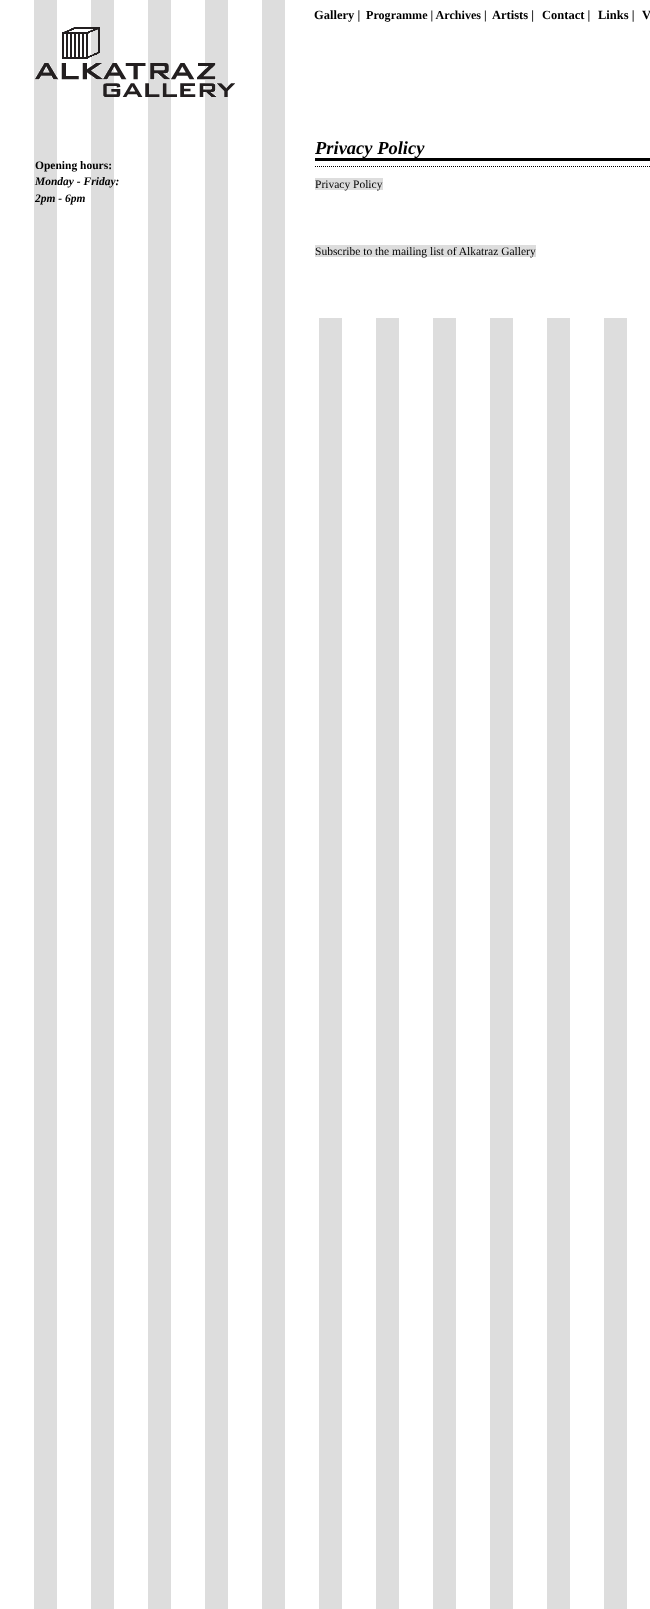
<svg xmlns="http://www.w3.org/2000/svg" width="650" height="1609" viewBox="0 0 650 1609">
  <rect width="100%" height="100%" fill="rgb(255,255,255)"/>
  <image x="34" y="0" width="593" height="1609" href="pic1.png"/>
  <rect x="319" y="0" width="308" height="318" fill="rgb(255,255,255)"/>
  <text x="314" y="19" font-family="Liberation Serif" font-size="12.5" font-weight="bold" fill="rgb(0,0,0)">Gallery |</text>
  <text x="366" y="19" font-family="Liberation Serif" font-size="12.1" font-weight="bold" fill="rgb(0,0,0)">Programme | Archives |</text>
  <g font-family="Liberation Serif" font-size="12.5" font-weight="bold" fill="rgb(0,0,0)">
    <text x="492" y="19">Artists |</text>
    <text x="542" y="19">Contact |</text>
    <text x="598" y="19">Links |</text>
    <text x="642" y="19">V</text>
  </g>
  <image x="35" y="27" width="200" height="70" href="pic2.png"/>
  <text x="35" y="169" font-family="Liberation Serif" font-size="11.5" font-weight="bold" fill="rgb(0,0,0)">Opening hours:</text>
  <g font-family="Liberation Serif" font-size="11.5" font-weight="bold" font-style="italic" fill="rgb(0,0,0)">
    <text>
      <tspan x="35" y="185">Monday - Friday:</tspan>
      <tspan x="35" y="202">2pm - 6pm</tspan>
    </text>
  </g>
  <rect x="315" y="158" width="335" height="3" fill="rgb(0,0,0)"/>
  <text x="315" y="154" font-family="Liberation Serif" font-size="18.5" font-weight="bold" font-style="italic" fill="rgb(0,0,0)">Privacy Policy</text>
  <path d="M315 166.5H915" fill="none" stroke="rgb(0,0,0)" stroke-dasharray="1 1"/>
  <rect x="315" y="178" width="68" height="12" fill="rgb(221,221,221)"/>
  <text x="315" y="188" font-family="Liberation Serif" font-size="11.5" fill="rgb(0,0,0)">Privacy Policy</text>
  <rect x="315" y="245" width="221" height="12" fill="rgb(221,221,221)"/>
  <text x="315" y="255" font-family="Liberation Serif" font-size="11.5" fill="rgb(0,0,0)">Subscribe to the mailing list of Alkatraz Gallery</text>
</svg>
